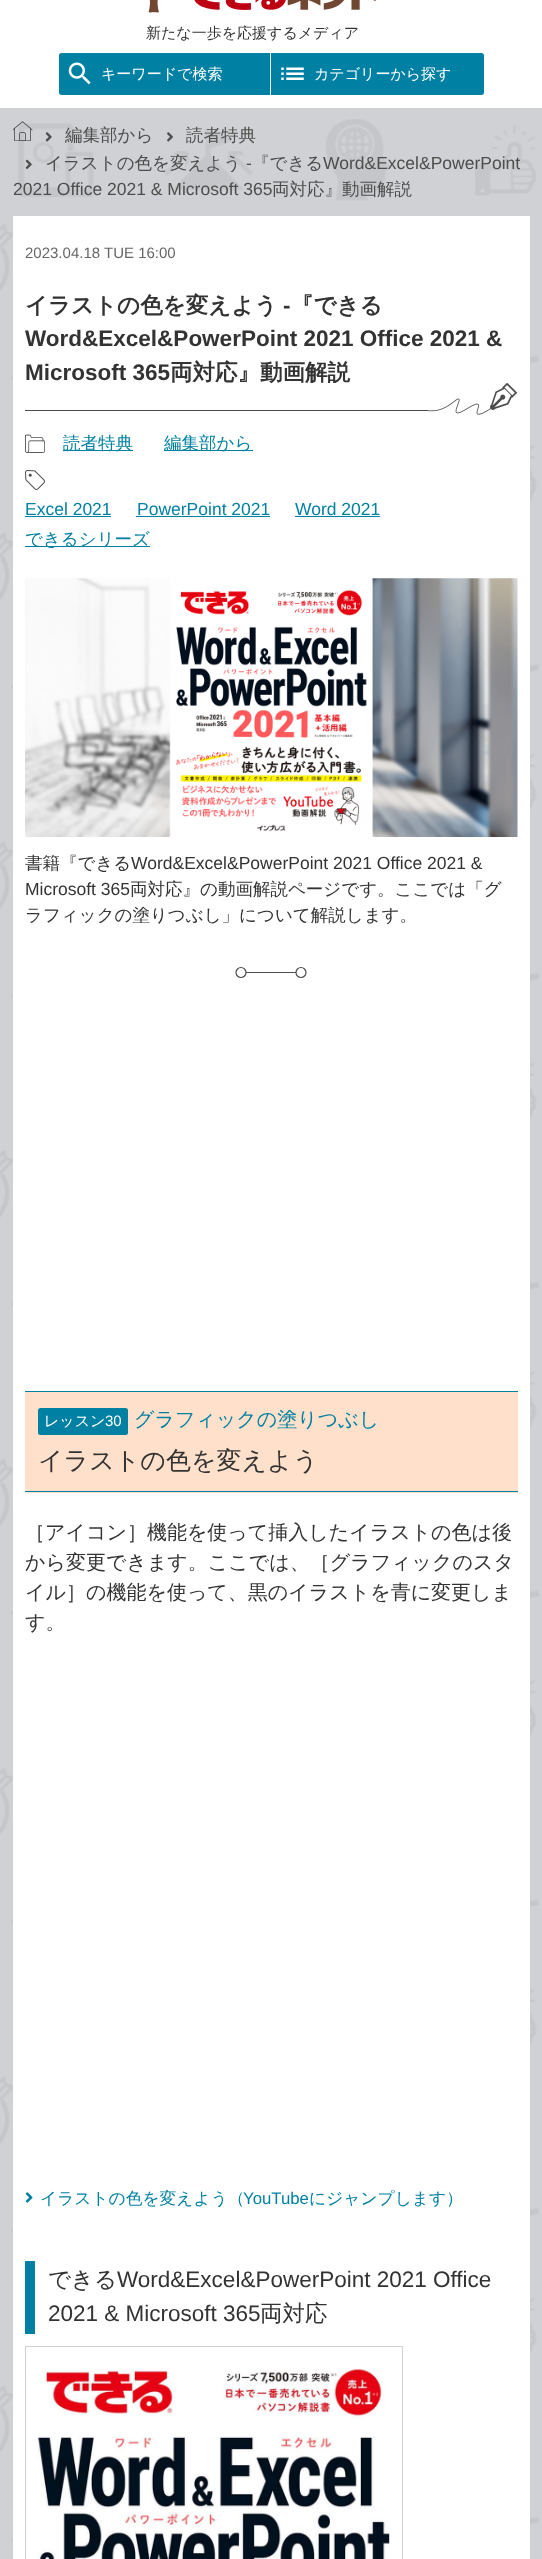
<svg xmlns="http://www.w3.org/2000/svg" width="542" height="2559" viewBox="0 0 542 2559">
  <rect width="100%" height="100%" fill="rgb(255,255,255)"/>
  <image x="148" y="0" width="228" height="13" href="pic1.png"/>
  <text x="146" y="38" font-family="WenQuanYi Zen Hei" font-size="15" font-weight="500" fill="rgb(51,51,51)">新たな一歩を応援するメディア</text>
  <path d="M61.5 53H271V95H61.5C60 95 59 94 59 92.5V55.5C59 54 60 53 61.5 53Z" fill="rgb(0,128,162)"/>
  <rect x="270" y="53" width="1" height="42" fill="rgb(255,255,255)"/>
  <image x="68" y="62" width="23" height="23" href="pic2.png"/>
  <text x="101" y="79" font-family="WenQuanYi Zen Hei" font-size="15" font-weight="500" fill="rgb(255,255,255)">キーワードで検索</text>
  <path d="M271 53H481.5C483 53 484 54 484 55.5V92.5C484 94 483 95 481.5 95H271Z" fill="rgb(0,128,162)"/>
  <image x="281" y="67" width="23" height="13" href="pic3.png"/>
  <text x="314" y="79" font-family="WenQuanYi Zen Hei" font-size="15" font-weight="500" fill="rgb(255,255,255)">カテゴリーから探す</text>
  <rect x="0" y="108" width="542" height="2451" fill="rgb(207,209,212)"/>
  <image x="0" y="119" width="539" height="2422" href="pic4.png"/>
  <image x="13" y="121" width="20" height="20" href="pic5.png"/>
  <image x="45" y="132" width="7" height="10" href="pic6.png"/>
  <text x="65" y="141" font-family="WenQuanYi Zen Hei" font-size="17.5" font-weight="500" fill="rgb(77,77,77)">編集部から</text>
  <image x="167" y="132" width="6" height="10" href="pic7.png"/>
  <text x="186" y="141" font-family="WenQuanYi Zen Hei" font-size="17.5" font-weight="500" fill="rgb(77,77,77)">読者特典</text>
  <image x="25" y="159" width="7" height="10" href="pic8.png"/>
  <text x="45" y="169" font-family="WenQuanYi Zen Hei" font-size="17.5" font-weight="500" fill="rgb(77,77,77)">イラストの色を変えよう</text>
  <text x="246" y="169" font-family="Liberation Sans" font-size="17.5" fill="rgb(77,77,77)">-</text>
  <text x="252" y="169" font-family="WenQuanYi Zen Hei" font-size="17.5" font-weight="500" fill="rgb(77,77,77)">『できる</text>
  <g font-family="Liberation Sans" font-size="17.5" fill="rgb(77,77,77)">
    <text x="323" y="169">Word&amp;Excel&amp;PowerPoint</text>
    <text x="13" y="195">2021 Office 2021 &amp; Microsoft 365</text>
  </g>
  <text x="272" y="195" font-family="WenQuanYi Zen Hei" font-size="17.5" font-weight="500" fill="rgb(77,77,77)">両対応』動画解説</text>
  <rect x="13" y="216" width="517" height="2343" fill="rgb(255,255,255)"/>
  <text x="25" y="258" font-family="Liberation Sans" font-size="15" fill="rgb(102,102,102)">2023.04.18 TUE 16:00</text>
  <image x="428" y="383" width="90" height="32" href="pic9.png"/>
  <text x="25" y="313" font-family="WenQuanYi Zen Hei" font-size="22.5" font-weight="bold" fill="rgb(51,51,51)">イラストの色を変えよう</text>
  <text x="283" y="313" font-family="Liberation Sans" font-size="22.5" font-weight="bold" fill="rgb(51,51,51)">-</text>
  <text x="291" y="313" font-family="WenQuanYi Zen Hei" font-size="22.5" font-weight="bold" fill="rgb(51,51,51)">『できる</text>
  <g font-family="Liberation Sans" font-size="22.5" font-weight="bold" fill="rgb(51,51,51)">
    <text>
      <tspan x="25" y="346">Word&amp;Excel&amp;PowerPoint 2021 Office 2021 &amp;</tspan>
      <tspan x="25" y="380">Microsoft 365</tspan>
    </text>
  </g>
  <text x="170" y="380" font-family="WenQuanYi Zen Hei" font-size="22.5" font-weight="bold" fill="rgb(51,51,51)">両対応』動画解説</text>
  <rect x="25" y="410" width="403" height="1" fill="rgb(77,77,77)"/>
  <image x="25" y="434" width="20" height="19" href="pic10.png"/>
  <rect x="63" y="450" width="70" height="1" fill="rgb(0,128,162)"/>
  <text x="63" y="449" font-family="WenQuanYi Zen Hei" font-size="17.5" font-weight="500" fill="rgb(0,128,162)">読者特典</text>
  <rect x="164" y="450" width="89" height="1" fill="rgb(0,128,162)"/>
  <text x="164" y="449" font-family="WenQuanYi Zen Hei" font-size="17.5" font-weight="500" fill="rgb(0,128,162)">編集部から</text>
  <image x="25" y="470" width="20" height="20" href="pic11.png"/>
  <text x="25" y="515" font-family="Liberation Sans" font-size="17.5" fill="rgb(0,128,162)">Excel 2021</text>
  <rect x="25" y="516" width="86" height="1" fill="rgb(0,128,162)"/>
  <text x="137" y="515" font-family="Liberation Sans" font-size="17.5" fill="rgb(0,128,162)">PowerPoint 2021</text>
  <rect x="136" y="516" width="134" height="1" fill="rgb(0,128,162)"/>
  <text x="295" y="515" font-family="Liberation Sans" font-size="17.5" fill="rgb(0,128,162)">Word 2021</text>
  <rect x="295" y="516" width="85" height="1" fill="rgb(0,128,162)"/>
  <rect x="25" y="546" width="125" height="1" fill="rgb(0,128,162)"/>
  <text x="25" y="545" font-family="WenQuanYi Zen Hei" font-size="17.5" font-weight="500" fill="rgb(0,128,162)">できるシリーズ</text>
  <image x="25" y="578" width="493" height="259" href="pic12.png"/>
  <text x="25" y="869" font-family="WenQuanYi Zen Hei" font-size="17.5" font-weight="500" fill="rgb(51,51,51)">書籍『できる</text>
  <g font-family="Liberation Sans" font-size="17.5" fill="rgb(51,51,51)">
    <text x="131" y="869">Word&amp;Excel&amp;PowerPoint 2021 Office 2021 &amp;</text>
    <text x="25" y="895">Microsoft 365</text>
  </g>
  <g font-family="WenQuanYi Zen Hei" font-size="17.5" font-weight="500" fill="rgb(51,51,51)">
    <text x="130" y="895">両対応』の動画解説ページです。ここでは「グ</text>
    <text x="25" y="921">ラフィックの塗りつぶし」について解説します。</text>
  </g>
  <rect x="246" y="972" width="50" height="1" fill="rgb(77,77,77)"/>
  <circle cx="301" cy="972.5" r="5" fill="none" stroke="rgb(77,77,77)" stroke-width="1.2"/>
  <circle cx="241" cy="972.5" r="5" fill="none" stroke="rgb(77,77,77)" stroke-width="1.2"/>
  <rect x="25" y="1392" width="493" height="101" fill="rgb(255,225,203)"/>
  <rect x="25" y="1391" width="493" height="1" fill="rgb(0,128,162)"/>
  <rect x="25" y="1491" width="493" height="1" fill="rgb(0,128,162)"/>
  <rect x="38" y="1408" width="90" height="27" rx="2.5" fill="rgb(0,128,162)"/>
  <text x="44" y="1426" font-family="WenQuanYi Zen Hei" font-size="15" font-weight="500" fill="rgb(255,255,255)">レッスン</text>
  <text x="105" y="1426" font-family="Liberation Sans" font-size="15" fill="rgb(255,255,255)">30</text>
  <text x="134" y="1426" font-family="WenQuanYi Zen Hei" font-size="20" font-weight="500" fill="rgb(0,128,162)">グラフィックの塗りつぶし</text>
  <text x="38" y="1469" font-family="WenQuanYi Zen Hei" font-size="25" font-weight="500" fill="rgb(51,51,51)">イラストの色を変えよう</text>
  <g font-family="WenQuanYi Zen Hei" font-size="20" font-weight="500" fill="rgb(51,51,51)">
    <text>
      <tspan x="25" y="1539">［アイコン］機能を使って挿入したイラストの色は後</tspan>
      <tspan x="25" y="1569">から変更できます。ここでは、［グラフィックのスタ</tspan>
      <tspan x="25" y="1599">イル］の機能を使って、黒のイラストを青に変更しま</tspan>
      <tspan x="25" y="1629">す。</tspan>
    </text>
  </g>
  <image x="25" y="2192" width="8" height="11" href="pic13.png"/>
  <text x="40" y="2204" font-family="WenQuanYi Zen Hei" font-size="16.75" font-weight="500" fill="rgb(0,128,162)">イラストの色を変えよう（</text>
  <text x="243" y="2204" font-family="Liberation Sans" font-size="16.75" fill="rgb(0,128,162)">YouTube</text>
  <text x="309" y="2204" font-family="WenQuanYi Zen Hei" font-size="16.75" font-weight="500" fill="rgb(0,128,162)">にジャンプします）</text>
  <rect x="25" y="2261" width="10" height="73" fill="rgb(0,128,162)"/>
  <text x="48" y="2287" font-family="WenQuanYi Zen Hei" font-size="22.5" font-weight="500" fill="rgb(51,51,51)">できる</text>
  <g font-family="Liberation Sans" font-size="22.5" fill="rgb(51,51,51)">
    <text x="117" y="2287">Word&amp;Excel&amp;PowerPoint 2021 Office</text>
    <text x="48" y="2321">2021 &amp; Microsoft 365</text>
  </g>
  <text x="260" y="2321" font-family="WenQuanYi Zen Hei" font-size="22.5" font-weight="500" fill="rgb(51,51,51)">両対応</text>
  <rect x="25.5" y="2346.5" width="377" height="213" fill="none" stroke="rgb(207,209,212)"/>
  <image x="36" y="2368" width="354" height="191" href="pic14.png"/>
</svg>
